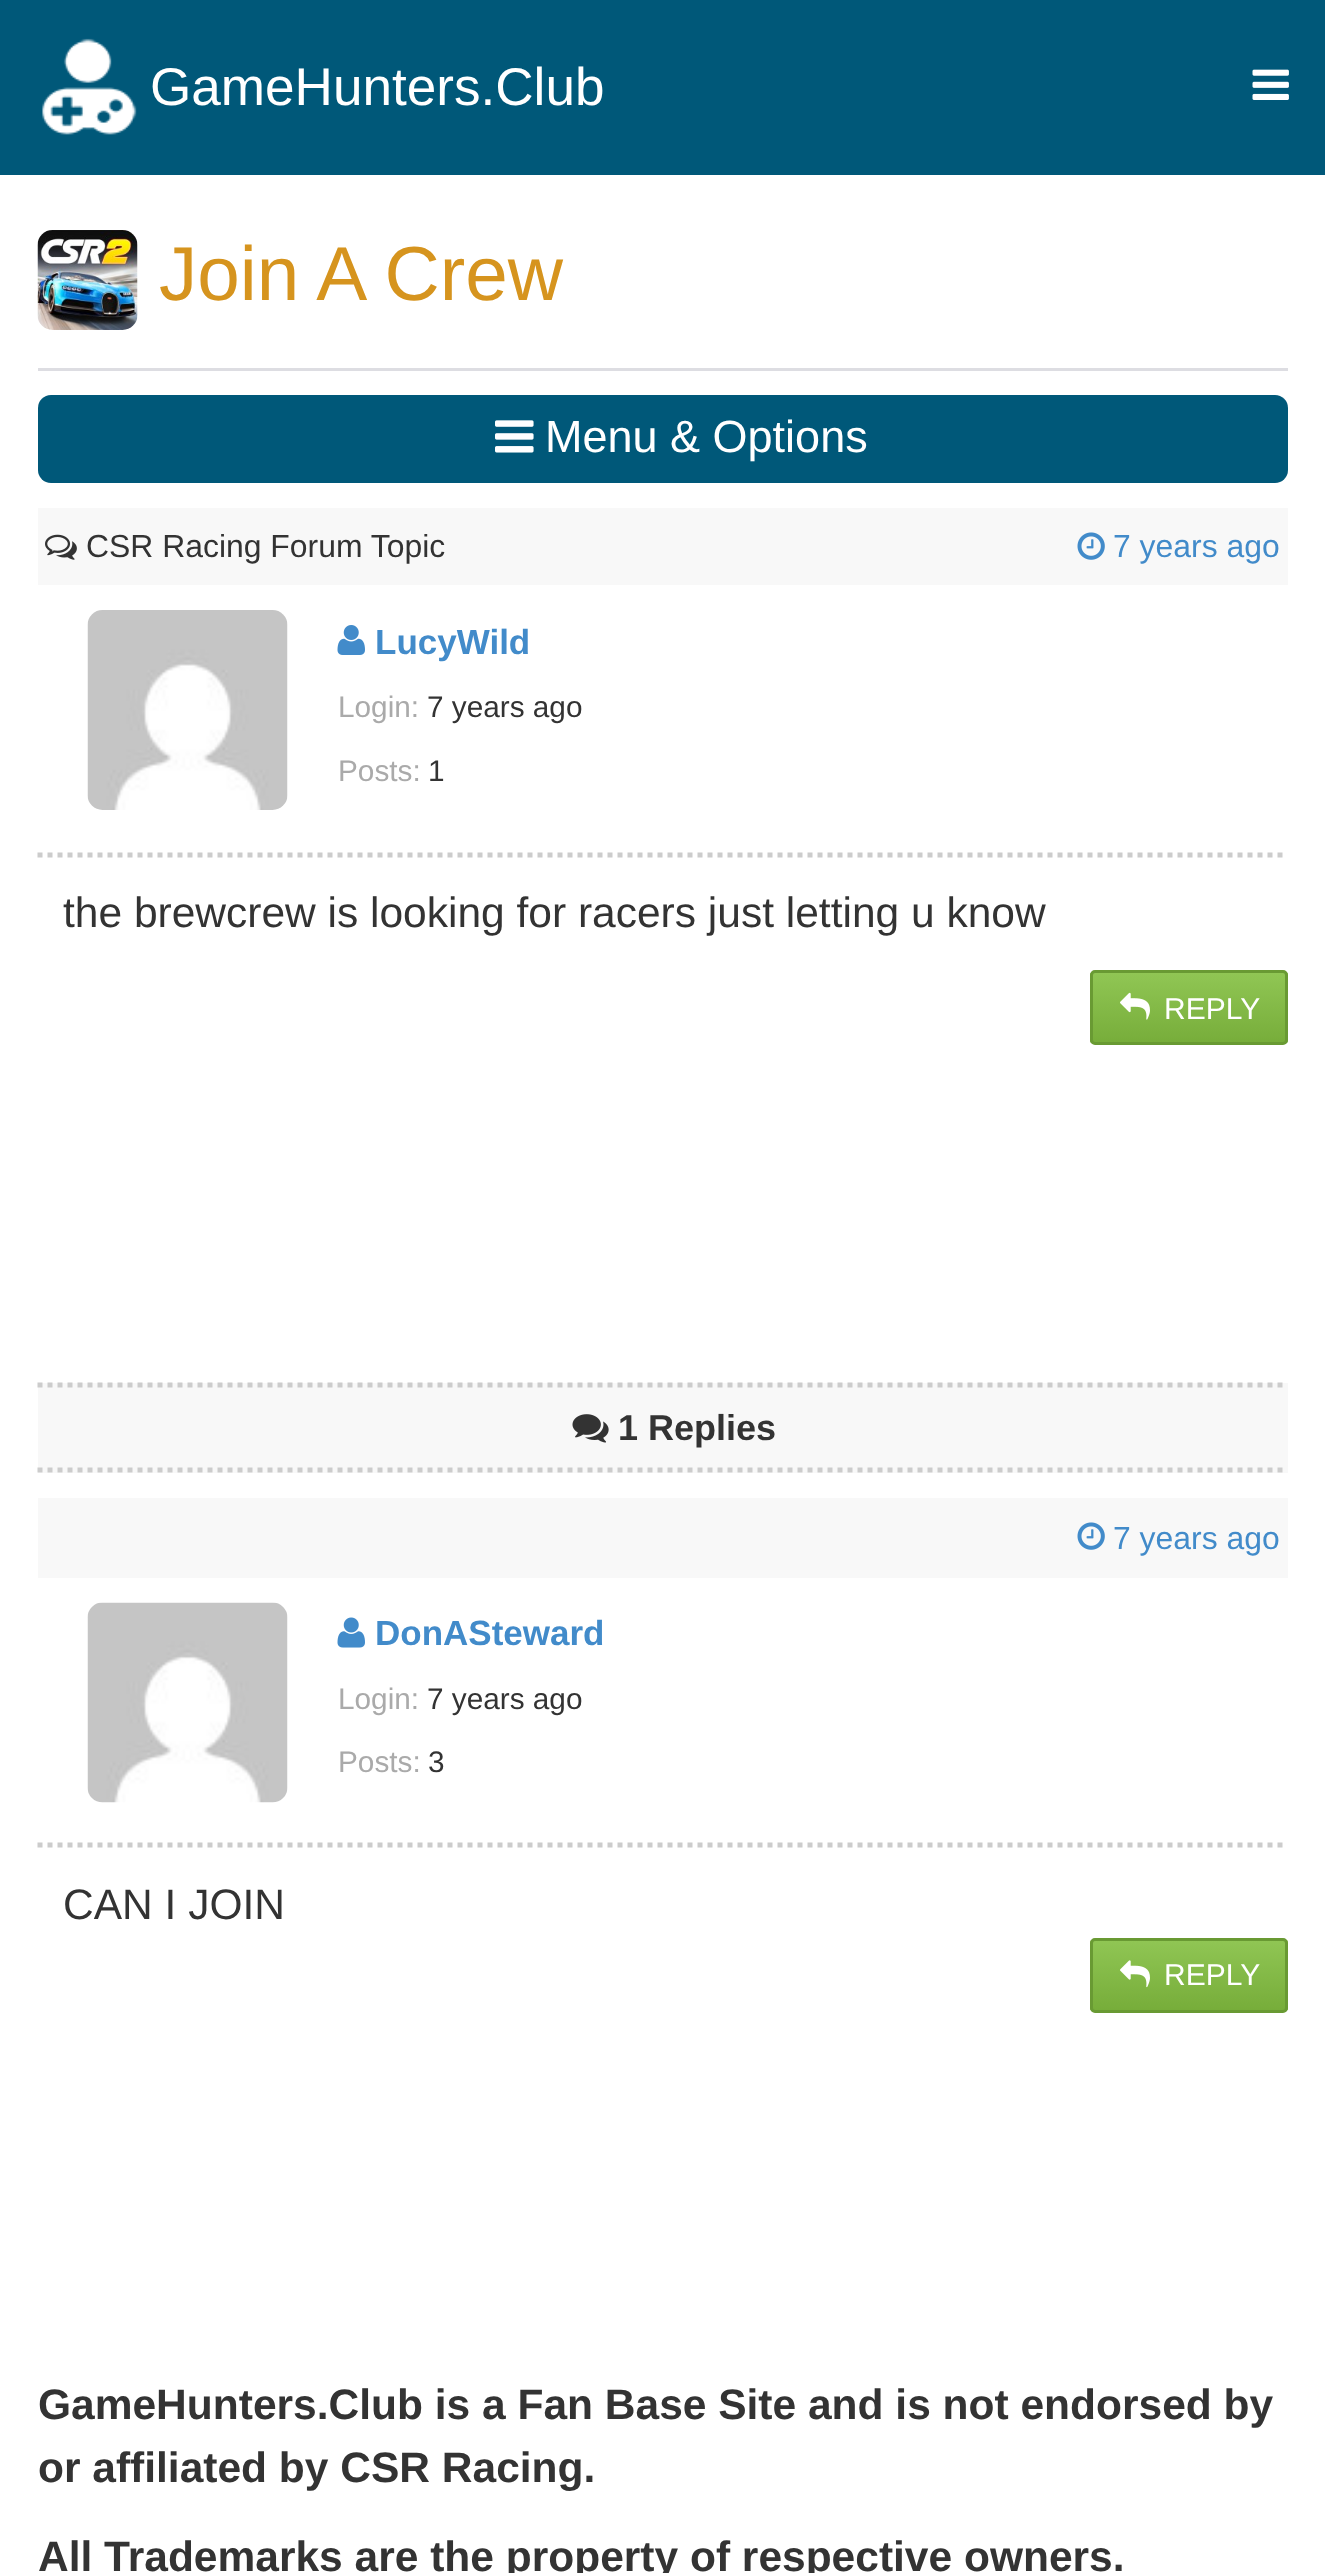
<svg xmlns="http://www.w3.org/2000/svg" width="1325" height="2573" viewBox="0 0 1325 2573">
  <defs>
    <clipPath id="clip1"><rect x="1090" y="970" width="198" height="75" rx="5"/></clipPath>
    <linearGradient id="g1" gradientUnits="userSpaceOnUse" x1="1189" y1="973" x2="1189" y2="1043"><stop offset="0" stop-color="rgb(144,198,84)"/><stop offset="1" stop-color="rgb(119,173,58)"/></linearGradient>
    <clipPath id="clip2"><rect x="1090" y="1938" width="198" height="75" rx="5"/></clipPath>
    <linearGradient id="g2" gradientUnits="userSpaceOnUse" x1="1189" y1="1940" x2="1189" y2="2010"><stop offset="0" stop-color="rgb(144,198,84)"/><stop offset="1" stop-color="rgb(119,173,58)"/></linearGradient>
  </defs>
  <rect width="100%" height="100%" fill="rgb(255,255,255)"/>
  <rect x="0" y="0" width="1325" height="175" fill="rgb(0,88,121)"/>
  <image x="42" y="38" width="95" height="97" href="pic1.png"/>
  <text x="150" y="105" font-family="Liberation Sans" font-size="53.1" fill="rgb(255,255,255)">GameHunters.Club</text>
  <image x="1252" y="69" width="37" height="31" href="pic2.png"/>
  <image x="37" y="230" width="101" height="100" href="pic3.png"/>
  <text x="159" y="300" font-family="Liberation Sans" font-size="76.5" fill="rgb(214,148,30)">Join A Crew</text>
  <rect x="38" y="368" width="1250" height="3" fill="rgb(221,221,226)"/>
  <rect x="38" y="395" width="1250" height="88" rx="13" fill="rgb(0,88,121)"/>
  <image x="495" y="420" width="39" height="33" href="pic4.png"/>
  <text x="545" y="452" font-family="Liberation Sans" font-size="45" fill="rgb(255,255,255)">Menu &amp; Options</text>
  <rect x="38" y="508" width="1250" height="77" fill="rgb(248,248,248)"/>
  <image x="45" y="534" width="32" height="26" href="pic5.png"/>
  <text x="86" y="557" font-family="Liberation Sans" font-size="31.9" fill="rgb(51,51,51)">CSR Racing Forum Topic</text>
  <image x="1077" y="532" width="28" height="28" href="pic6.png"/>
  <text x="1113" y="557" font-family="Liberation Sans" font-size="31.9" fill="rgb(66,139,202)">7 years ago</text>
  <path d="M37.5 855H1287.5" fill="none" stroke="rgb(204,204,204)" stroke-width="5" stroke-dasharray="5 5"/>
  <image x="87" y="610" width="201" height="200" href="pic7.png"/>
  <image x="337" y="625" width="28" height="30" href="pic8.png"/>
  <text x="375" y="654" font-family="Liberation Sans" font-size="35" font-weight="bold" fill="rgb(66,139,202)">LucyWild</text>
  <text x="338" y="717" font-family="Liberation Sans" font-size="29.75" fill="rgb(170,170,170)">Login:</text>
  <text x="427" y="717" font-family="Liberation Sans" font-size="29.75" fill="rgb(51,51,51)">7 years ago</text>
  <text x="338" y="781" font-family="Liberation Sans" font-size="29.75" fill="rgb(170,170,170)">Posts:</text>
  <text x="428" y="781" font-family="Liberation Sans" font-size="29.75" fill="rgb(51,51,51)">1</text>
  <text x="63" y="927" font-family="Liberation Sans" font-size="42.5" fill="rgb(51,51,51)">the brewcrew is looking for racers just letting u know</text>
  <g clip-path="url(#clip1)">
    <rect x="1090" y="973" width="198" height="70" fill="url(#g1)"/>
  </g>
  <rect x="1091.5" y="971.5" width="195" height="72" rx="3.5" fill="none" stroke="rgb(105,154,51)" stroke-width="3"/>
  <image x="1120" y="992" width="30" height="28" href="pic9.png"/>
  <text x="1164" y="1019" font-family="Liberation Sans" font-size="30" fill="rgb(255,255,255)">REPLY</text>
  <rect x="38" y="1383" width="1250" height="90" fill="rgb(248,248,248)"/>
  <path d="M37.5 1385H1287.5" fill="none" stroke="rgb(204,204,204)" stroke-width="5" stroke-dasharray="5 5"/>
  <path d="M37.5 1470H1287.5" fill="none" stroke="rgb(204,204,204)" stroke-width="5" stroke-dasharray="5 5"/>
  <image x="572" y="1414" width="37" height="29" href="pic10.png"/>
  <text x="618" y="1440" font-family="Liberation Sans" font-size="36" font-weight="bold" fill="rgb(51,51,51)">1 Replies</text>
  <rect x="38" y="1498" width="1250" height="80" fill="rgb(248,248,248)"/>
  <image x="1077" y="1522" width="28" height="28" href="pic6.png"/>
  <text x="1113" y="1549" font-family="Liberation Sans" font-size="31.9" fill="rgb(66,139,202)">7 years ago</text>
  <path d="M37.5 1845H1287.5" fill="none" stroke="rgb(204,204,204)" stroke-width="5" stroke-dasharray="5 5"/>
  <image x="87" y="1602" width="201" height="201" href="pic11.png"/>
  <image x="337" y="1617" width="28" height="31" href="pic12.png"/>
  <text x="375" y="1645" font-family="Liberation Sans" font-size="35" font-weight="bold" fill="rgb(66,139,202)">DonASteward</text>
  <text x="338" y="1709" font-family="Liberation Sans" font-size="29.75" fill="rgb(170,170,170)">Login:</text>
  <text x="427" y="1709" font-family="Liberation Sans" font-size="29.75" fill="rgb(51,51,51)">7 years ago</text>
  <text x="338" y="1772" font-family="Liberation Sans" font-size="29.75" fill="rgb(170,170,170)">Posts:</text>
  <text x="428" y="1772" font-family="Liberation Sans" font-size="29.75" fill="rgb(51,51,51)">3</text>
  <text x="63" y="1919" font-family="Liberation Sans" font-size="42.5" fill="rgb(51,51,51)">CAN I JOIN</text>
  <g clip-path="url(#clip2)">
    <rect x="1090" y="1940" width="198" height="70" fill="url(#g2)"/>
  </g>
  <rect x="1091.5" y="1939.5" width="195" height="72" rx="3.5" fill="none" stroke="rgb(105,154,51)" stroke-width="3"/>
  <image x="1120" y="1960" width="30" height="28" href="pic13.png"/>
  <text x="1164" y="1985" font-family="Liberation Sans" font-size="30" fill="rgb(255,255,255)">REPLY</text>
  <g font-family="Liberation Sans" font-size="42.5" font-weight="bold" fill="rgb(51,51,51)">
    <text>
      <tspan x="38" y="2419">GameHunters.Club is a Fan Base Site and is not endorsed by</tspan>
      <tspan x="38" y="2482">or affiliated by CSR Racing.</tspan>
    </text>
    <text x="38" y="2571">All Trademarks are the property of respective owners.</text>
  </g>
</svg>
